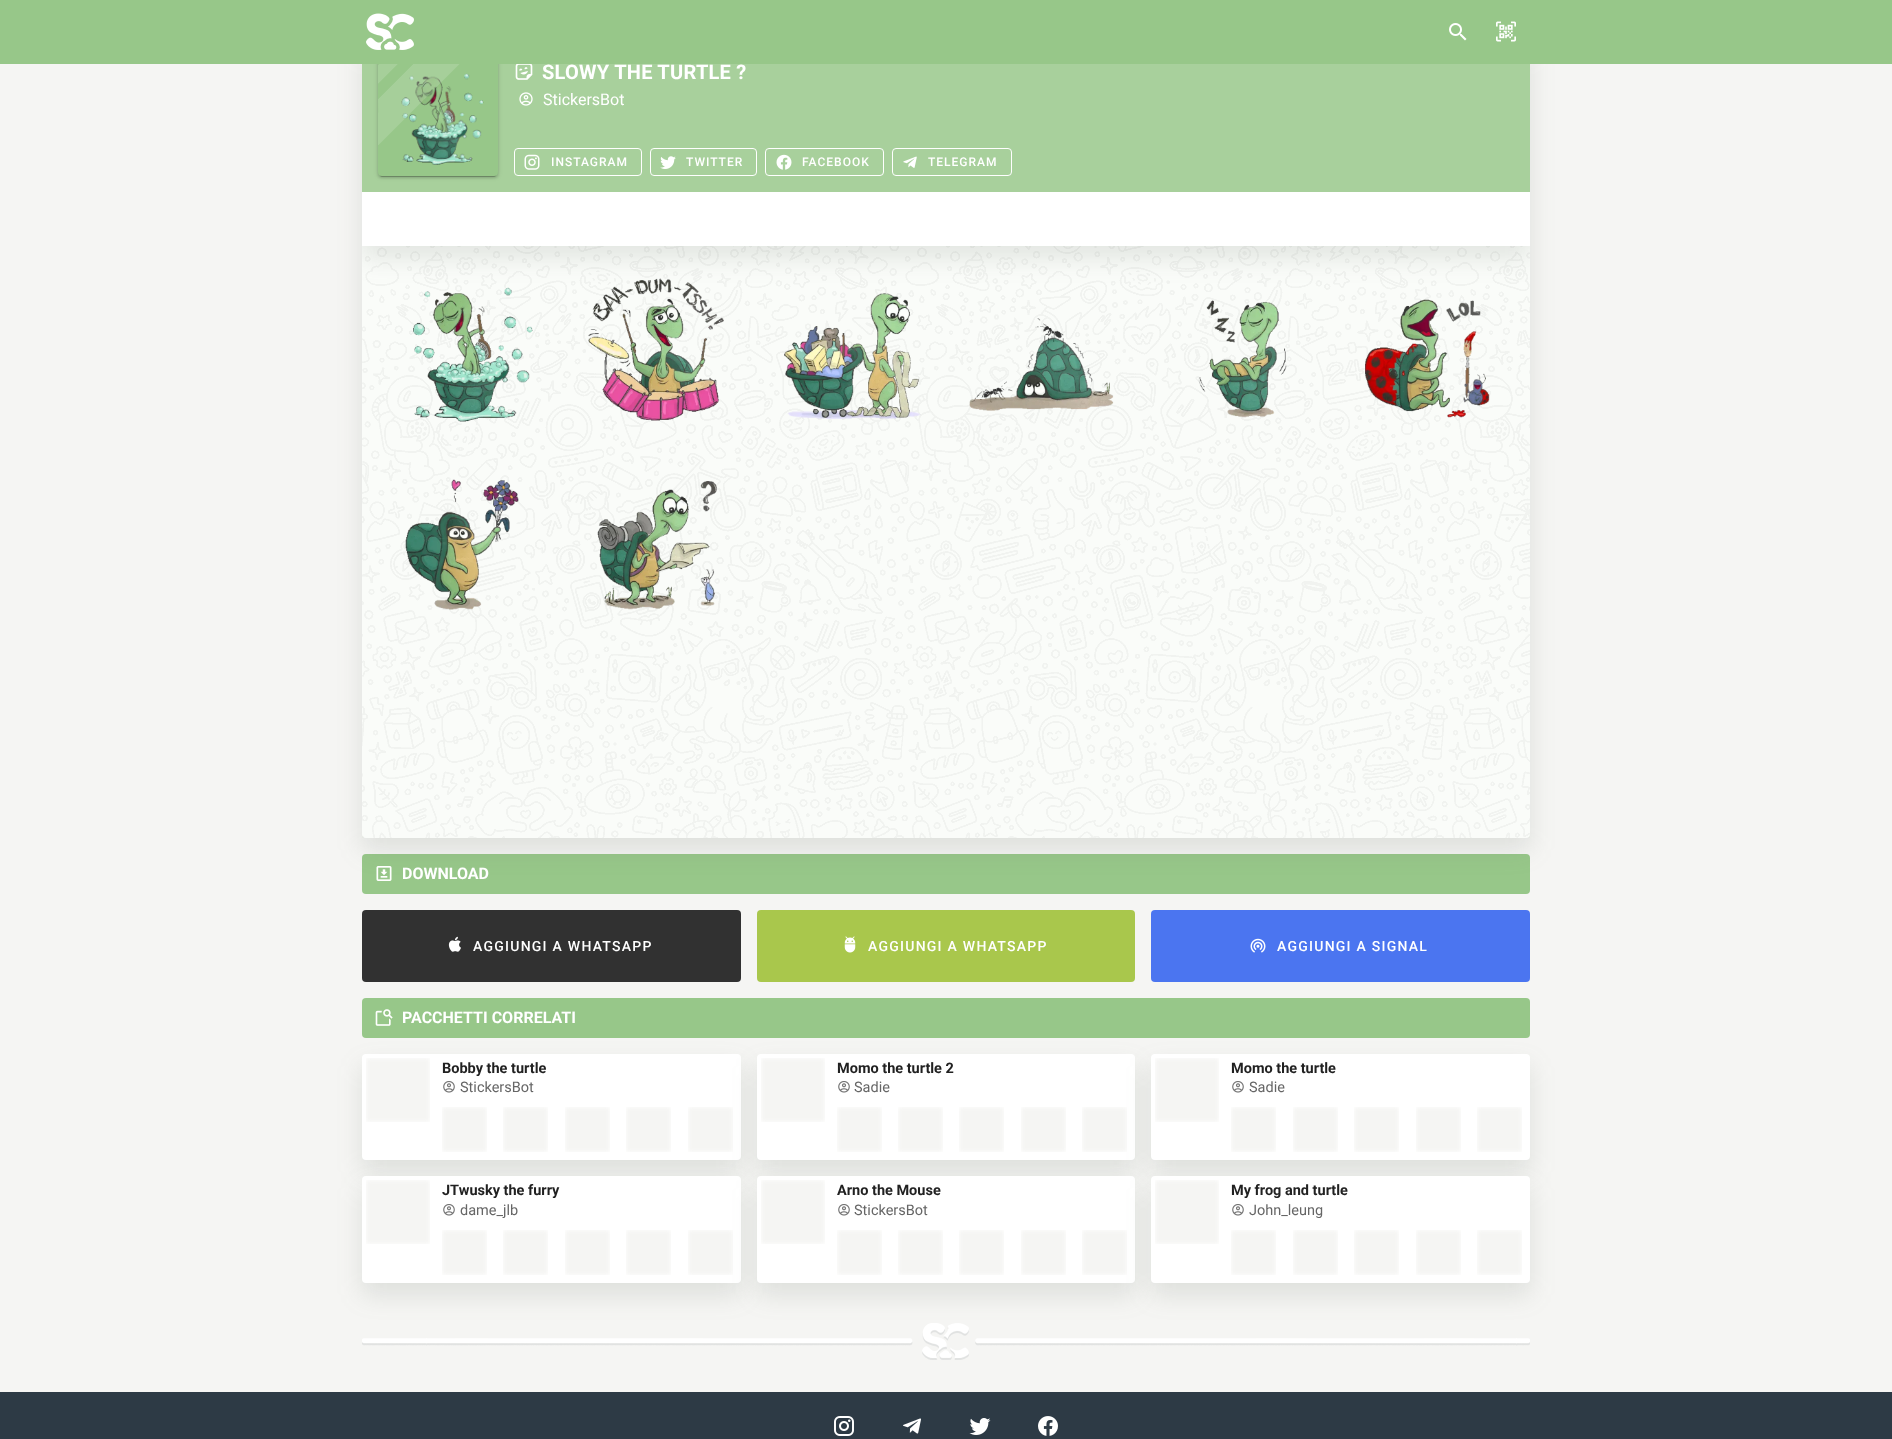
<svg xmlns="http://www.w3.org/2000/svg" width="1892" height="1439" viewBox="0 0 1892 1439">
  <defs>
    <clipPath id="clip1"><rect x="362" y="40" width="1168" height="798" rx="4"/></clipPath>
    <clipPath id="clip2"><path d="M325 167H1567V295H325ZM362 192H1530V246H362Z" clip-rule="evenodd"/></clipPath>
  </defs>
  <rect width="100%" height="100%" fill="rgb(245,245,243)"/>
  <rect x="362" y="854" width="1168" height="40" rx="4" fill="rgb(151,199,137)"/>
  <rect x="362" y="52" width="1168" height="798" rx="4" fill="rgba(102,110,98,0.16)" filter="blur(12px)"/>
  <rect x="362" y="40" width="1168" height="798" rx="4" fill="rgb(255,255,255)"/>
  <g clip-path="url(#clip1)">
    <g clip-path="url(#clip2)">
      <rect x="362" y="204" width="1168" height="54" fill="rgba(102,110,98,0.16)" filter="blur(12px)"/>
    </g>
  </g>
  <rect x="362" y="64" width="1168" height="128" fill="rgba(151,199,137,0.84)"/>
  <rect x="378" y="57" width="120" height="120" rx="4" fill="rgba(0,0,0,0.12)" filter="blur(2.5px)"/>
  <rect x="378" y="58" width="120" height="120" rx="4" fill="rgba(0,0,0,0.14)" filter="blur(1px)"/>
  <rect x="380" y="61" width="116" height="116" rx="2" fill="rgba(0,0,0,0.2)" filter="blur(0.5px)"/>
  <rect x="378" y="56" width="120" height="120" rx="4" fill="rgb(151,199,137)"/>
  <rect x="0" y="0" width="1892" height="64" fill="rgb(151,199,137)"/>
  <image x="366" y="13" width="48" height="37" href="pic1.png"/>
  <image x="1449" y="23" width="18" height="18" href="pic2.png"/>
  <image x="1496" y="21" width="20" height="21" href="pic3.png"/>
  <image x="401" y="73" width="83" height="92" href="pic5.png"/>
  <image x="378" y="64" width="82" height="81" href="pic4.png"/>
  <image x="515" y="64" width="18" height="16" href="pic6.png"/>
  <text x="542" y="79" font-family="Roboto" font-size="20" font-weight="bold" letter-spacing="0.25" fill="rgb(255,255,255)">SLOWY THE TURTLE ?</text>
  <image x="519" y="92" width="14" height="14" href="pic7.png"/>
  <text x="543" y="105" font-family="Roboto" font-size="16" fill="rgb(255,255,255)">StickersBot</text>
  <rect x="514.5" y="148.5" width="127" height="27" rx="3.5" fill="none" stroke="rgb(255,255,255)"/>
  <image x="524" y="154" width="16" height="16" href="pic8.png"/>
  <text x="551" y="166" font-family="Roboto" font-size="12" font-weight="500" letter-spacing="1" fill="rgb(255,255,255)">INSTAGRAM</text>
  <rect x="650.5" y="148.5" width="106" height="27" rx="3.5" fill="none" stroke="rgb(255,255,255)"/>
  <image x="660" y="156" width="16" height="13" href="pic9.png"/>
  <text x="686" y="166" font-family="Roboto" font-size="12" font-weight="500" letter-spacing="1" fill="rgb(255,255,255)">TWITTER</text>
  <rect x="765.5" y="148.5" width="118" height="27" rx="3.5" fill="none" stroke="rgb(255,255,255)"/>
  <image x="776" y="154" width="16" height="16" href="pic10.png"/>
  <text x="802" y="166" font-family="Roboto" font-size="12" font-weight="500" letter-spacing="1" fill="rgb(255,255,255)">FACEBOOK</text>
  <rect x="892.5" y="148.5" width="119" height="27" rx="3.5" fill="none" stroke="rgb(255,255,255)"/>
  <image x="903" y="156" width="14" height="12" href="pic11.png"/>
  <text x="928" y="166" font-family="Roboto" font-size="12" font-weight="500" letter-spacing="1" fill="rgb(255,255,255)">TELEGRAM</text>
  <rect x="362" y="246" width="1168" height="592" fill="rgba(151,199,137,0.05)"/>
  <image x="362" y="246" width="1168" height="592" href="pic12.png"/>
  <image x="413" y="287" width="120" height="135" href="pic13.png"/>
  <image x="588" y="278" width="136" height="143" href="pic14.png"/>
  <image x="784" y="293" width="137" height="126" href="pic15.png"/>
  <image x="969" y="318" width="145" height="93" href="pic16.png"/>
  <image x="1198" y="300" width="89" height="118" href="pic17.png"/>
  <image x="1365" y="299" width="125" height="119" href="pic18.png"/>
  <image x="405" y="479" width="114" height="131" href="pic19.png"/>
  <image x="597" y="481" width="120" height="129" href="pic20.png"/>
  <image x="376" y="866" width="16" height="15" href="pic21.png"/>
  <text x="402" y="879" font-family="Roboto" font-size="16" font-weight="bold" fill="rgb(255,255,255)">DOWNLOAD</text>
  <rect x="362" y="910" width="379" height="72" rx="4" fill="rgb(49,49,49)"/>
  <image x="448" y="936" width="13" height="16" href="pic22.png"/>
  <text x="473" y="951" font-family="Roboto" font-size="14" font-weight="500" letter-spacing="1.25" fill="rgb(255,255,255)">AGGIUNGI A WHATSAPP</text>
  <rect x="757" y="910" width="378" height="72" rx="4" fill="rgb(169,199,76)"/>
  <image x="844" y="936" width="12" height="17" href="pic23.png"/>
  <text x="868" y="951" font-family="Roboto" font-size="14" font-weight="500" letter-spacing="1.25" fill="rgb(255,255,255)">AGGIUNGI A WHATSAPP</text>
  <rect x="1151" y="910" width="379" height="72" rx="4" fill="rgb(75,117,240)"/>
  <image x="1250" y="938" width="16" height="15" href="pic24.png"/>
  <text x="1277" y="951" font-family="Roboto" font-size="14" font-weight="500" letter-spacing="1.25" fill="rgb(255,255,255)">AGGIUNGI A SIGNAL</text>
  <rect x="362" y="998" width="1168" height="40" rx="4" fill="rgb(151,199,137)"/>
  <image x="375" y="1009" width="18" height="17" href="pic25.png"/>
  <text x="402" y="1023" font-family="Roboto" font-size="16" font-weight="bold" fill="rgb(255,255,255)">PACCHETTI CORRELATI</text>
  <rect x="362" y="1066" width="379" height="106" rx="4" fill="rgba(102,110,98,0.16)" filter="blur(12px)"/>
  <rect x="362" y="1054" width="379" height="106" rx="4" fill="rgb(255,255,255)"/>
  <image x="366" y="1058" width="64" height="64" href="pic26.png"/>
  <text x="442" y="1073" font-family="Roboto" font-size="14.5" font-weight="bold" fill="rgb(33,33,33)">Bobby the turtle</text>
  <image x="443" y="1081" width="12" height="12" href="pic27.png"/>
  <text x="460" y="1092" font-family="Roboto" font-size="14.5" fill="rgb(102,102,102)">StickersBot</text>
  <image x="442" y="1107" width="45" height="45" href="pic28.png"/>
  <image x="503" y="1107" width="45" height="45" href="pic28.png"/>
  <image x="565" y="1107" width="45" height="45" href="pic28.png"/>
  <image x="626" y="1107" width="45" height="45" href="pic28.png"/>
  <image x="688" y="1107" width="45" height="45" href="pic28.png"/>
  <rect x="757" y="1066" width="378" height="106" rx="4" fill="rgba(102,110,98,0.16)" filter="blur(12px)"/>
  <rect x="757" y="1054" width="378" height="106" rx="4" fill="rgb(255,255,255)"/>
  <image x="761" y="1058" width="64" height="64" href="pic26.png"/>
  <text x="837" y="1073" font-family="Roboto" font-size="14.5" font-weight="bold" fill="rgb(33,33,33)">Momo the turtle 2</text>
  <image x="838" y="1081" width="12" height="12" href="pic27.png"/>
  <text x="854" y="1092" font-family="Roboto" font-size="14.5" fill="rgb(102,102,102)">Sadie</text>
  <image x="837" y="1107" width="45" height="45" href="pic28.png"/>
  <image x="898" y="1107" width="45" height="45" href="pic28.png"/>
  <image x="959" y="1107" width="45" height="45" href="pic28.png"/>
  <image x="1021" y="1107" width="45" height="45" href="pic28.png"/>
  <image x="1082" y="1107" width="45" height="45" href="pic28.png"/>
  <rect x="1151" y="1066" width="379" height="106" rx="4" fill="rgba(102,110,98,0.16)" filter="blur(12px)"/>
  <rect x="1151" y="1054" width="379" height="106" rx="4" fill="rgb(255,255,255)"/>
  <image x="1155" y="1058" width="64" height="64" href="pic26.png"/>
  <text x="1231" y="1073" font-family="Roboto" font-size="14.5" font-weight="bold" fill="rgb(33,33,33)">Momo the turtle</text>
  <image x="1232" y="1081" width="12" height="12" href="pic27.png"/>
  <text x="1249" y="1092" font-family="Roboto" font-size="14.5" fill="rgb(102,102,102)">Sadie</text>
  <image x="1231" y="1107" width="45" height="45" href="pic28.png"/>
  <image x="1293" y="1107" width="45" height="45" href="pic28.png"/>
  <image x="1354" y="1107" width="45" height="45" href="pic28.png"/>
  <image x="1416" y="1107" width="45" height="45" href="pic28.png"/>
  <image x="1477" y="1107" width="45" height="45" href="pic28.png"/>
  <image x="362" y="1323" width="1168" height="37" href="pic29.png"/>
  <rect x="362" y="1188" width="379" height="107" rx="4" fill="rgba(102,110,98,0.16)" filter="blur(12px)"/>
  <rect x="362" y="1176" width="379" height="107" rx="4" fill="rgb(255,255,255)"/>
  <image x="366" y="1180" width="64" height="64" href="pic26.png"/>
  <text x="442" y="1195" font-family="Roboto" font-size="14.5" font-weight="bold" fill="rgb(33,33,33)">JTwusky the furry</text>
  <image x="443" y="1204" width="12" height="12" href="pic27.png"/>
  <text x="460" y="1215" font-family="Roboto" font-size="14.5" fill="rgb(102,102,102)">dame_jlb</text>
  <image x="442" y="1230" width="45" height="45" href="pic28.png"/>
  <image x="503" y="1230" width="45" height="45" href="pic28.png"/>
  <image x="565" y="1230" width="45" height="45" href="pic28.png"/>
  <image x="626" y="1230" width="45" height="45" href="pic28.png"/>
  <image x="688" y="1230" width="45" height="45" href="pic28.png"/>
  <rect x="757" y="1188" width="378" height="107" rx="4" fill="rgba(102,110,98,0.16)" filter="blur(12px)"/>
  <rect x="757" y="1176" width="378" height="107" rx="4" fill="rgb(255,255,255)"/>
  <image x="761" y="1180" width="64" height="64" href="pic26.png"/>
  <text x="837" y="1195" font-family="Roboto" font-size="14.5" font-weight="bold" fill="rgb(33,33,33)">Arno the Mouse</text>
  <image x="838" y="1204" width="12" height="12" href="pic27.png"/>
  <text x="854" y="1215" font-family="Roboto" font-size="14.5" fill="rgb(102,102,102)">StickersBot</text>
  <image x="837" y="1230" width="45" height="45" href="pic28.png"/>
  <image x="898" y="1230" width="45" height="45" href="pic28.png"/>
  <image x="959" y="1230" width="45" height="45" href="pic28.png"/>
  <image x="1021" y="1230" width="45" height="45" href="pic28.png"/>
  <image x="1082" y="1230" width="45" height="45" href="pic28.png"/>
  <rect x="1151" y="1188" width="379" height="107" rx="4" fill="rgba(102,110,98,0.16)" filter="blur(12px)"/>
  <rect x="1151" y="1176" width="379" height="107" rx="4" fill="rgb(255,255,255)"/>
  <image x="1155" y="1180" width="64" height="64" href="pic26.png"/>
  <text x="1231" y="1195" font-family="Roboto" font-size="14.5" font-weight="bold" fill="rgb(33,33,33)">My frog and turtle</text>
  <image x="1232" y="1204" width="12" height="12" href="pic27.png"/>
  <text x="1249" y="1215" font-family="Roboto" font-size="14.5" fill="rgb(102,102,102)">John_leung</text>
  <image x="1231" y="1230" width="45" height="45" href="pic28.png"/>
  <image x="1293" y="1230" width="45" height="45" href="pic28.png"/>
  <image x="1354" y="1230" width="45" height="45" href="pic28.png"/>
  <image x="1416" y="1230" width="45" height="45" href="pic28.png"/>
  <image x="1477" y="1230" width="45" height="45" href="pic28.png"/>
  <rect x="0" y="1392" width="1892" height="47" fill="rgb(45,58,69)"/>
  <image x="834" y="1416" width="20" height="20" href="pic30.png"/>
  <image x="903" y="1418" width="18" height="16" href="pic31.png"/>
  <image x="969" y="1418" width="22" height="17" href="pic32.png"/>
  <image x="1038" y="1416" width="20" height="20" href="pic33.png"/>
</svg>
